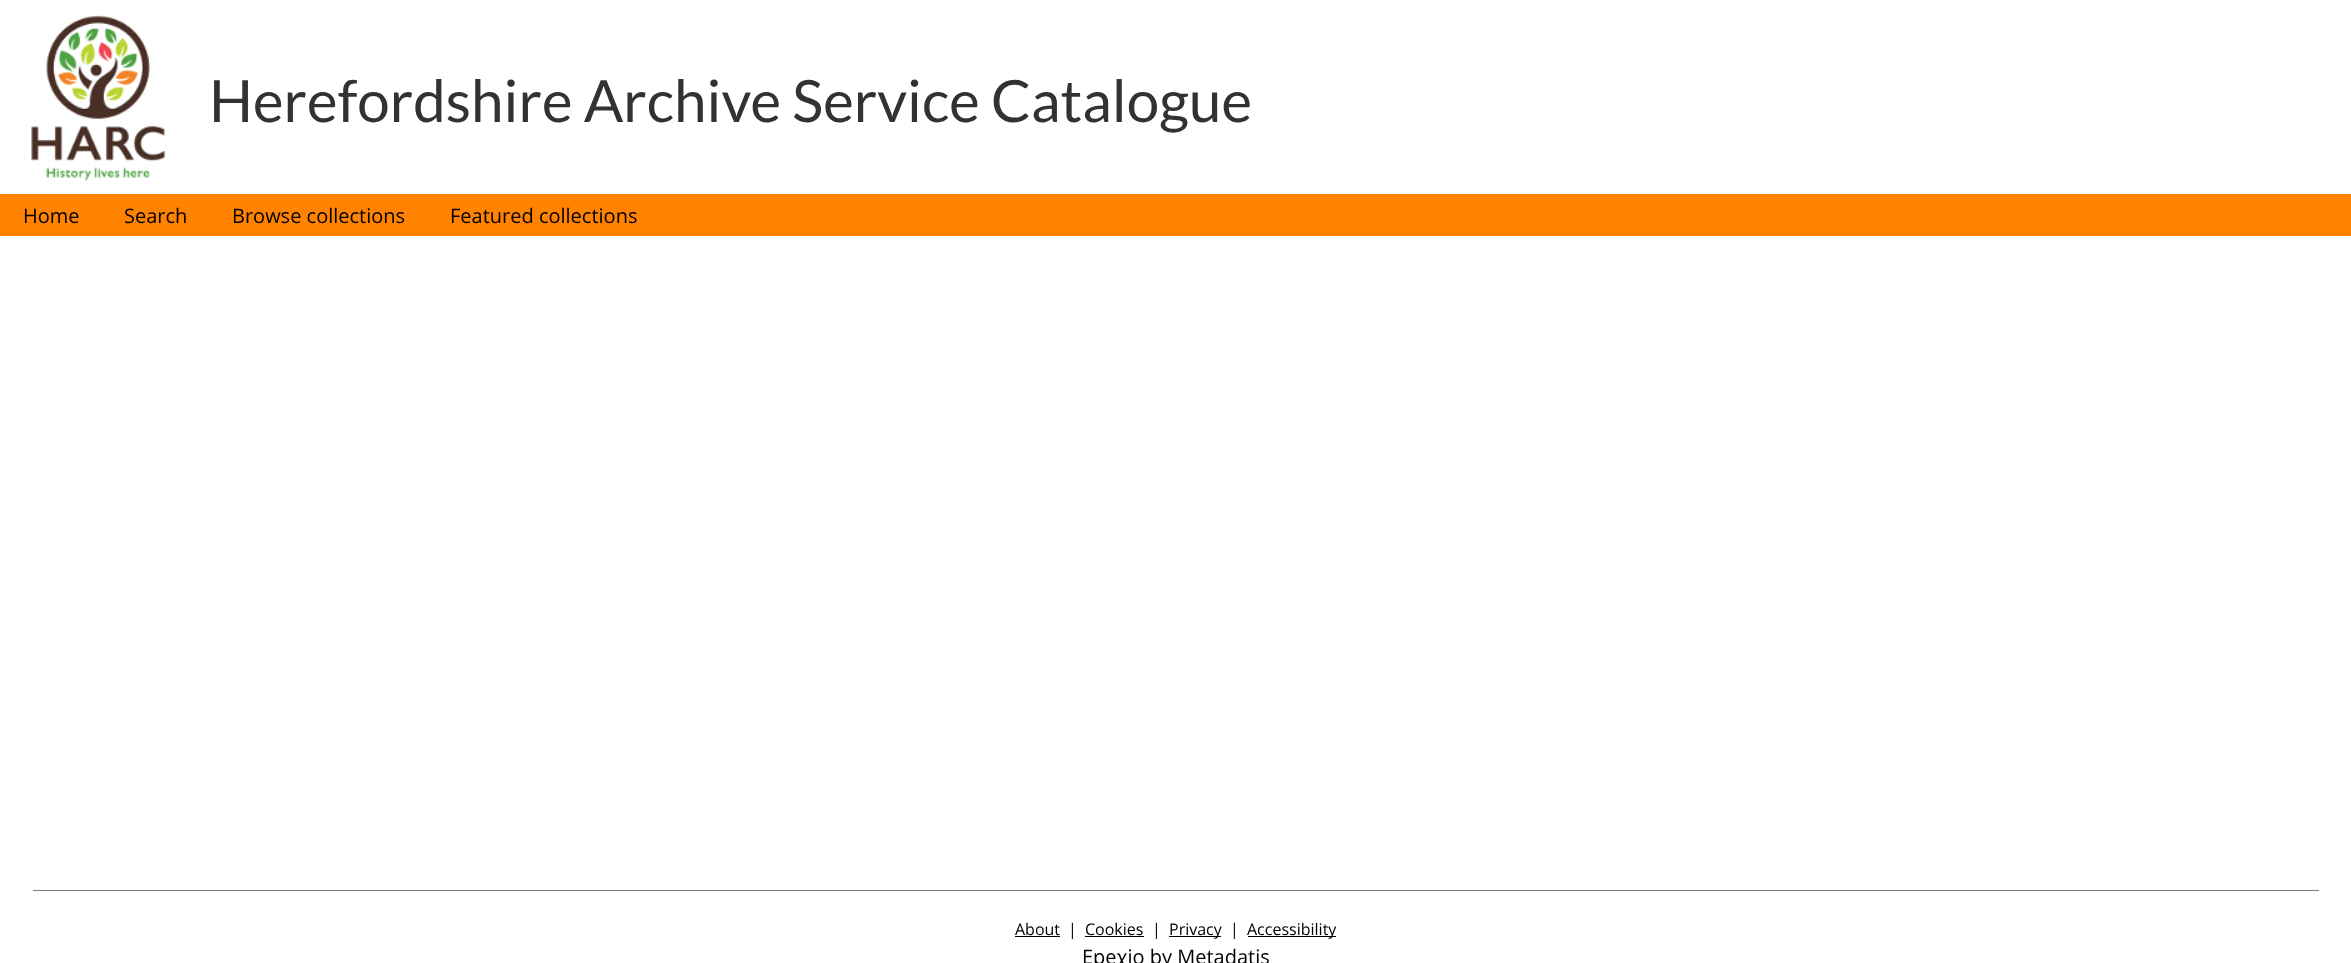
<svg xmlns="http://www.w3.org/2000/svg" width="2351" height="963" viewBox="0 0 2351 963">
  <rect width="100%" height="100%" fill="rgb(255,255,255)"/>
  <image x="31" y="15" width="135" height="167" href="pic1.png"/>
  <text x="209" y="122" font-family="Lato" font-size="58.3" fill="rgb(51,49,49)">Herefordshire Archive Service Catalogue</text>
  <rect x="0" y="194" width="2351" height="42" fill="rgb(255,131,0)"/>
  <g font-family="Open Sans" font-size="20" fill="rgb(0,0,0)">
    <text x="23" y="223">Home</text>
    <text x="124" y="223">Search</text>
    <text x="232" y="223">Browse collections</text>
    <text x="450" y="223">Featured collections</text>
  </g>
  <rect x="33" y="890" width="2286" height="1" fill="rgb(128,128,128)"/>
  <text x="1015" y="935" font-family="Open Sans" font-size="16" fill="rgb(0,0,0)">About</text>
  <rect x="1015" y="936" width="45" height="1" fill="rgb(0,0,0)"/>
  <g font-family="Open Sans" font-size="16" fill="rgb(0,0,0)">
    <text x="1068" y="935">|</text>
    <text x="1085" y="935">Cookies</text>
  </g>
  <rect x="1085" y="936" width="59" height="1" fill="rgb(0,0,0)"/>
  <text x="1152" y="935" font-family="Open Sans" font-size="16" fill="rgb(0,0,0)">|</text>
  <rect x="1169" y="936" width="52" height="1" fill="rgb(0,0,0)"/>
  <g font-family="Open Sans" font-size="16" fill="rgb(0,0,0)">
    <text x="1169" y="935">Privacy</text>
    <text x="1230" y="935">|</text>
  </g>
  <rect x="1248" y="936" width="88" height="1" fill="rgb(0,0,0)"/>
  <text x="1247" y="935" font-family="Open Sans" font-size="16" fill="rgb(0,0,0)">Accessibility</text>
  <text x="1082" y="964" font-family="Open Sans" font-size="20" fill="rgb(0,0,0)">Epeχio by Metadatis</text>
</svg>
